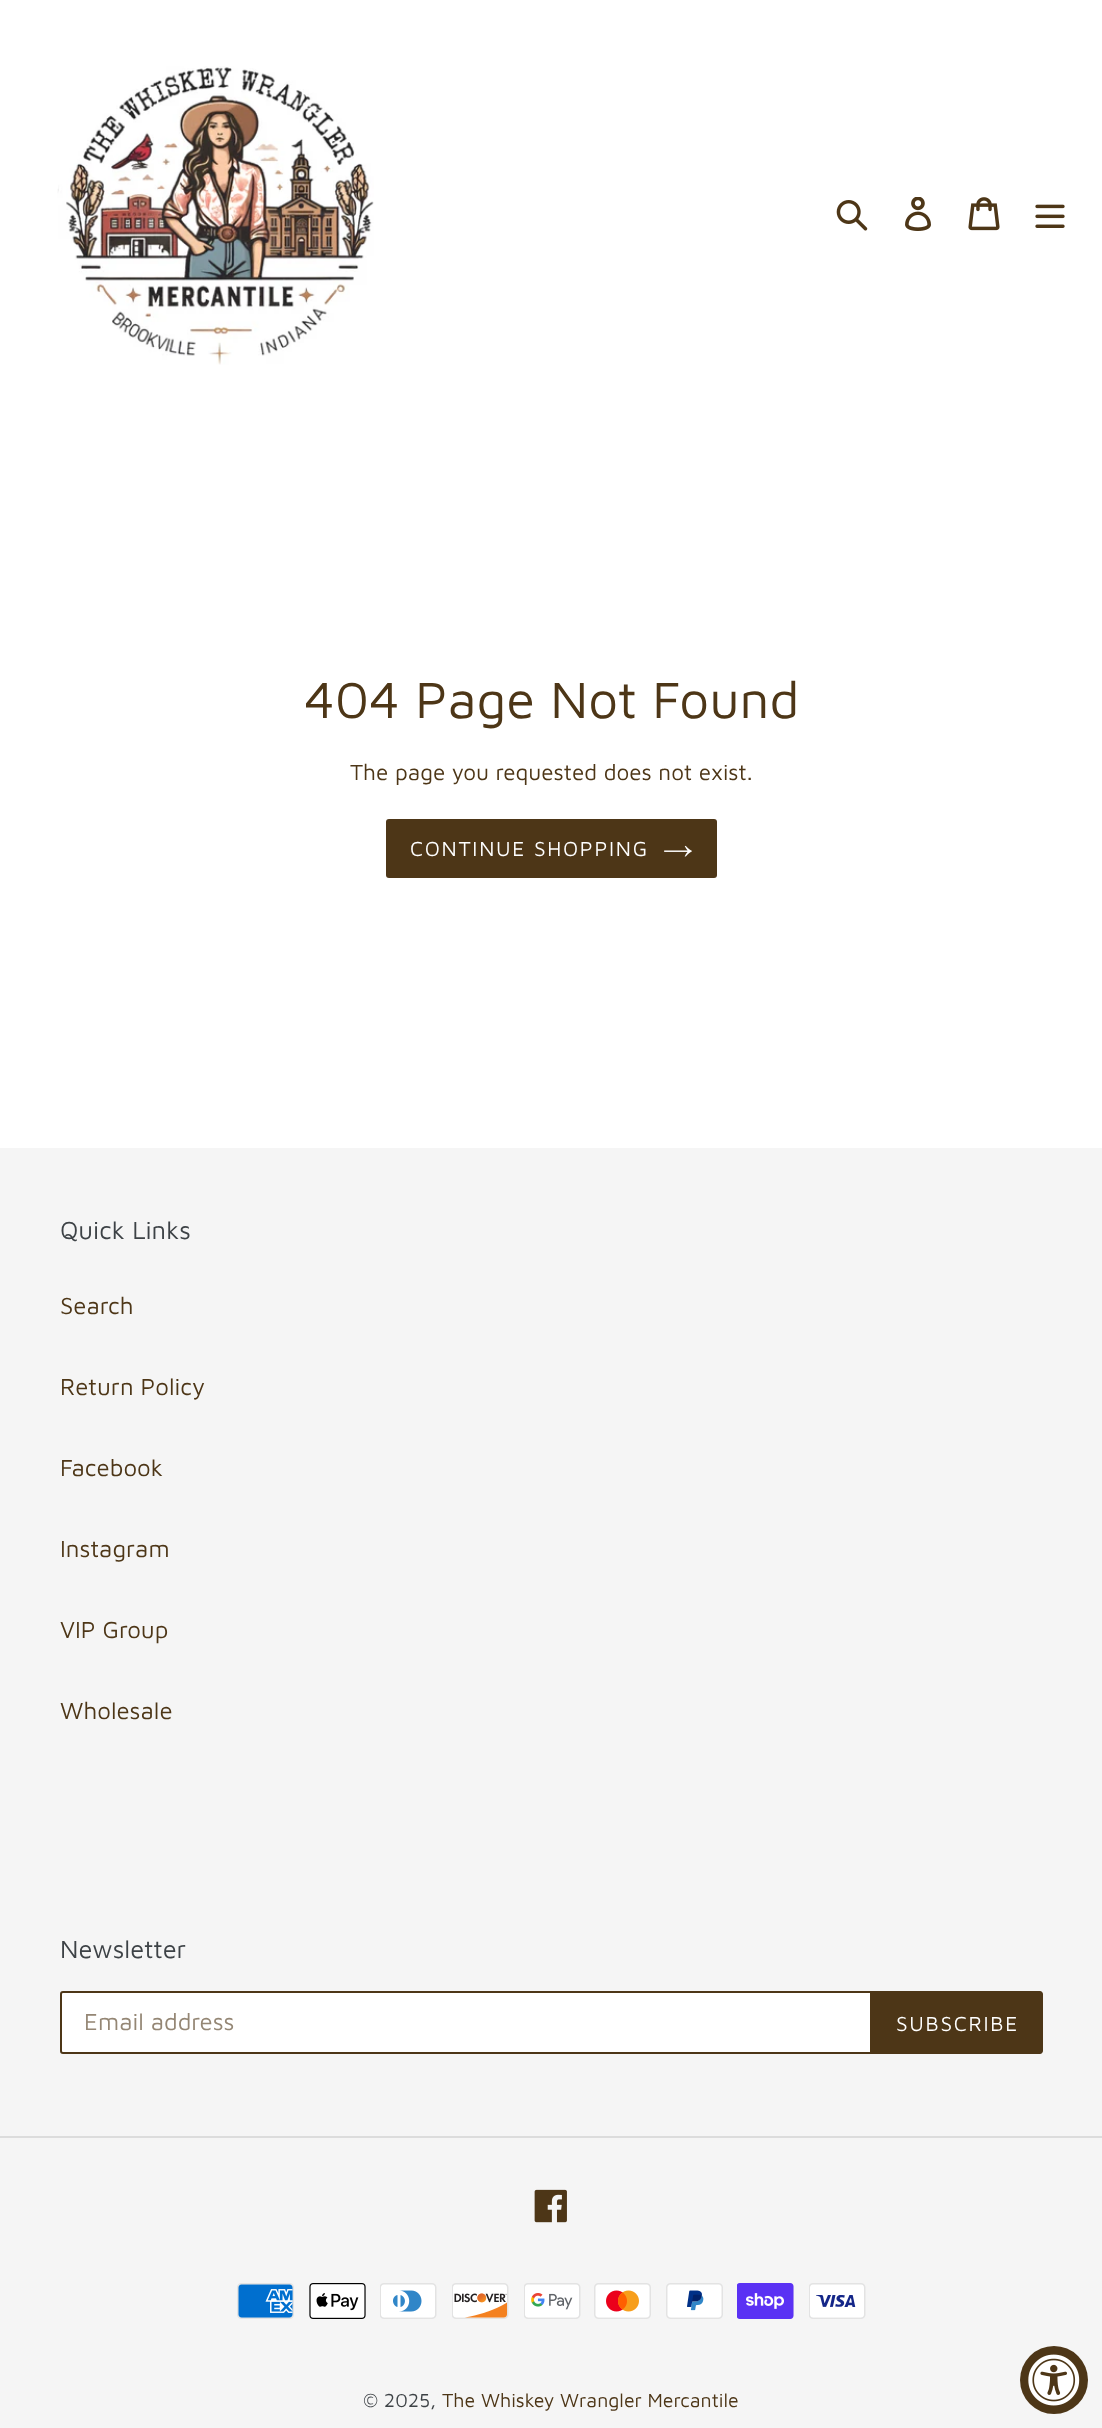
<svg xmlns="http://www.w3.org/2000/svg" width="1102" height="2428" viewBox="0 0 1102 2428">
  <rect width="100%" height="100%" fill="rgb(255,255,255)"/>
  <image x="57" y="66" width="317" height="299" href="pic1.png"/>
  <image x="836" y="200" width="32" height="31" href="pic2.png"/>
  <image x="905" y="197" width="26" height="34" href="pic3.png"/>
  <image x="968" y="197" width="32" height="34" href="pic4.png"/>
  <image x="1035" y="204" width="30" height="24" href="pic5.png"/>
  <text x="304" y="718" font-family="Maven Pro" font-size="52.5" fill="rgb(77,54,23)">404 Page Not Found</text>
  <text x="350" y="780" font-family="Maven Pro" font-size="22.5" fill="rgb(77,54,23)">The page you requested does not exist.</text>
  <rect x="386" y="819" width="331" height="59" rx="3" fill="rgb(77,54,23)"/>
  <text x="410" y="856" font-family="Maven Pro" font-size="21" letter-spacing="1.7" fill="rgb(255,255,255)">CONTINUE SHOPPING</text>
  <image x="664" y="845" width="28" height="12" href="pic6.png"/>
  <rect x="0" y="1148" width="1102" height="1280" fill="rgb(245,245,245)"/>
  <text x="60" y="1239" font-family="Maven Pro" font-size="25.5" fill="rgb(61,66,70)">Quick Links</text>
  <g font-family="Maven Pro" font-size="24" fill="rgb(77,54,23)">
    <text x="60" y="1314">Search</text>
    <text x="60" y="1395">Return Policy</text>
    <text x="60" y="1476">Facebook</text>
    <text x="60" y="1557">Instagram</text>
    <text x="60" y="1638">VIP Group</text>
    <text x="60" y="1719">Wholesale</text>
  </g>
  <text x="60" y="1958" font-family="Maven Pro" font-size="25.5" fill="rgb(61,66,70)">Newsletter</text>
  <path d="M63 1992H871V2053H63C62 2053 61 2052 61 2051V1994C61 1993 62 1992 63 1992Z" fill="rgb(255,255,255)" stroke="rgb(77,54,23)" stroke-width="2"/>
  <text x="84" y="2030" font-family="Maven Pro" font-size="24" fill="rgb(148,134,116)">Email address</text>
  <path d="M872 1991H1040C1041.5 1991 1043 1992.5 1043 1994V2051C1043 2052.5 1041.5 2054 1040 2054H872Z" fill="rgb(77,54,23)"/>
  <text x="896" y="2031" font-family="Maven Pro" font-size="21" letter-spacing="1.7" fill="rgb(255,255,255)">SUBSCRIBE</text>
  <rect x="0" y="2136" width="1102" height="2" fill="rgb(220,220,220)"/>
  <image x="534" y="2189" width="33" height="34" href="pic7.png"/>
  <image x="237" y="2283" width="57" height="36" href="pic8.png"/>
  <image x="309" y="2283" width="57" height="36" href="pic9.png"/>
  <image x="380" y="2283" width="57" height="36" href="pic10.png"/>
  <image x="452" y="2283" width="57" height="36" href="pic11.png"/>
  <image x="524" y="2283" width="57" height="36" href="pic12.png"/>
  <image x="594" y="2283" width="57" height="36" href="pic13.png"/>
  <image x="666" y="2283" width="57" height="36" href="pic14.png"/>
  <image x="737" y="2283" width="57" height="36" href="pic15.png"/>
  <image x="809" y="2283" width="57" height="36" href="pic16.png"/>
  <text x="363" y="2407" font-family="Maven Pro" font-size="19.5" fill="rgb(61,66,70)">© 2025,</text>
  <text x="442" y="2407" font-family="Maven Pro" font-size="19.5" fill="rgb(77,54,23)">The Whiskey Wrangler Mercantile</text>
  <circle cx="1054" cy="2380" r="34" fill="rgb(77,54,23)"/>
  <image x="1028" y="2354" width="52" height="52" href="pic17.png"/>
</svg>
